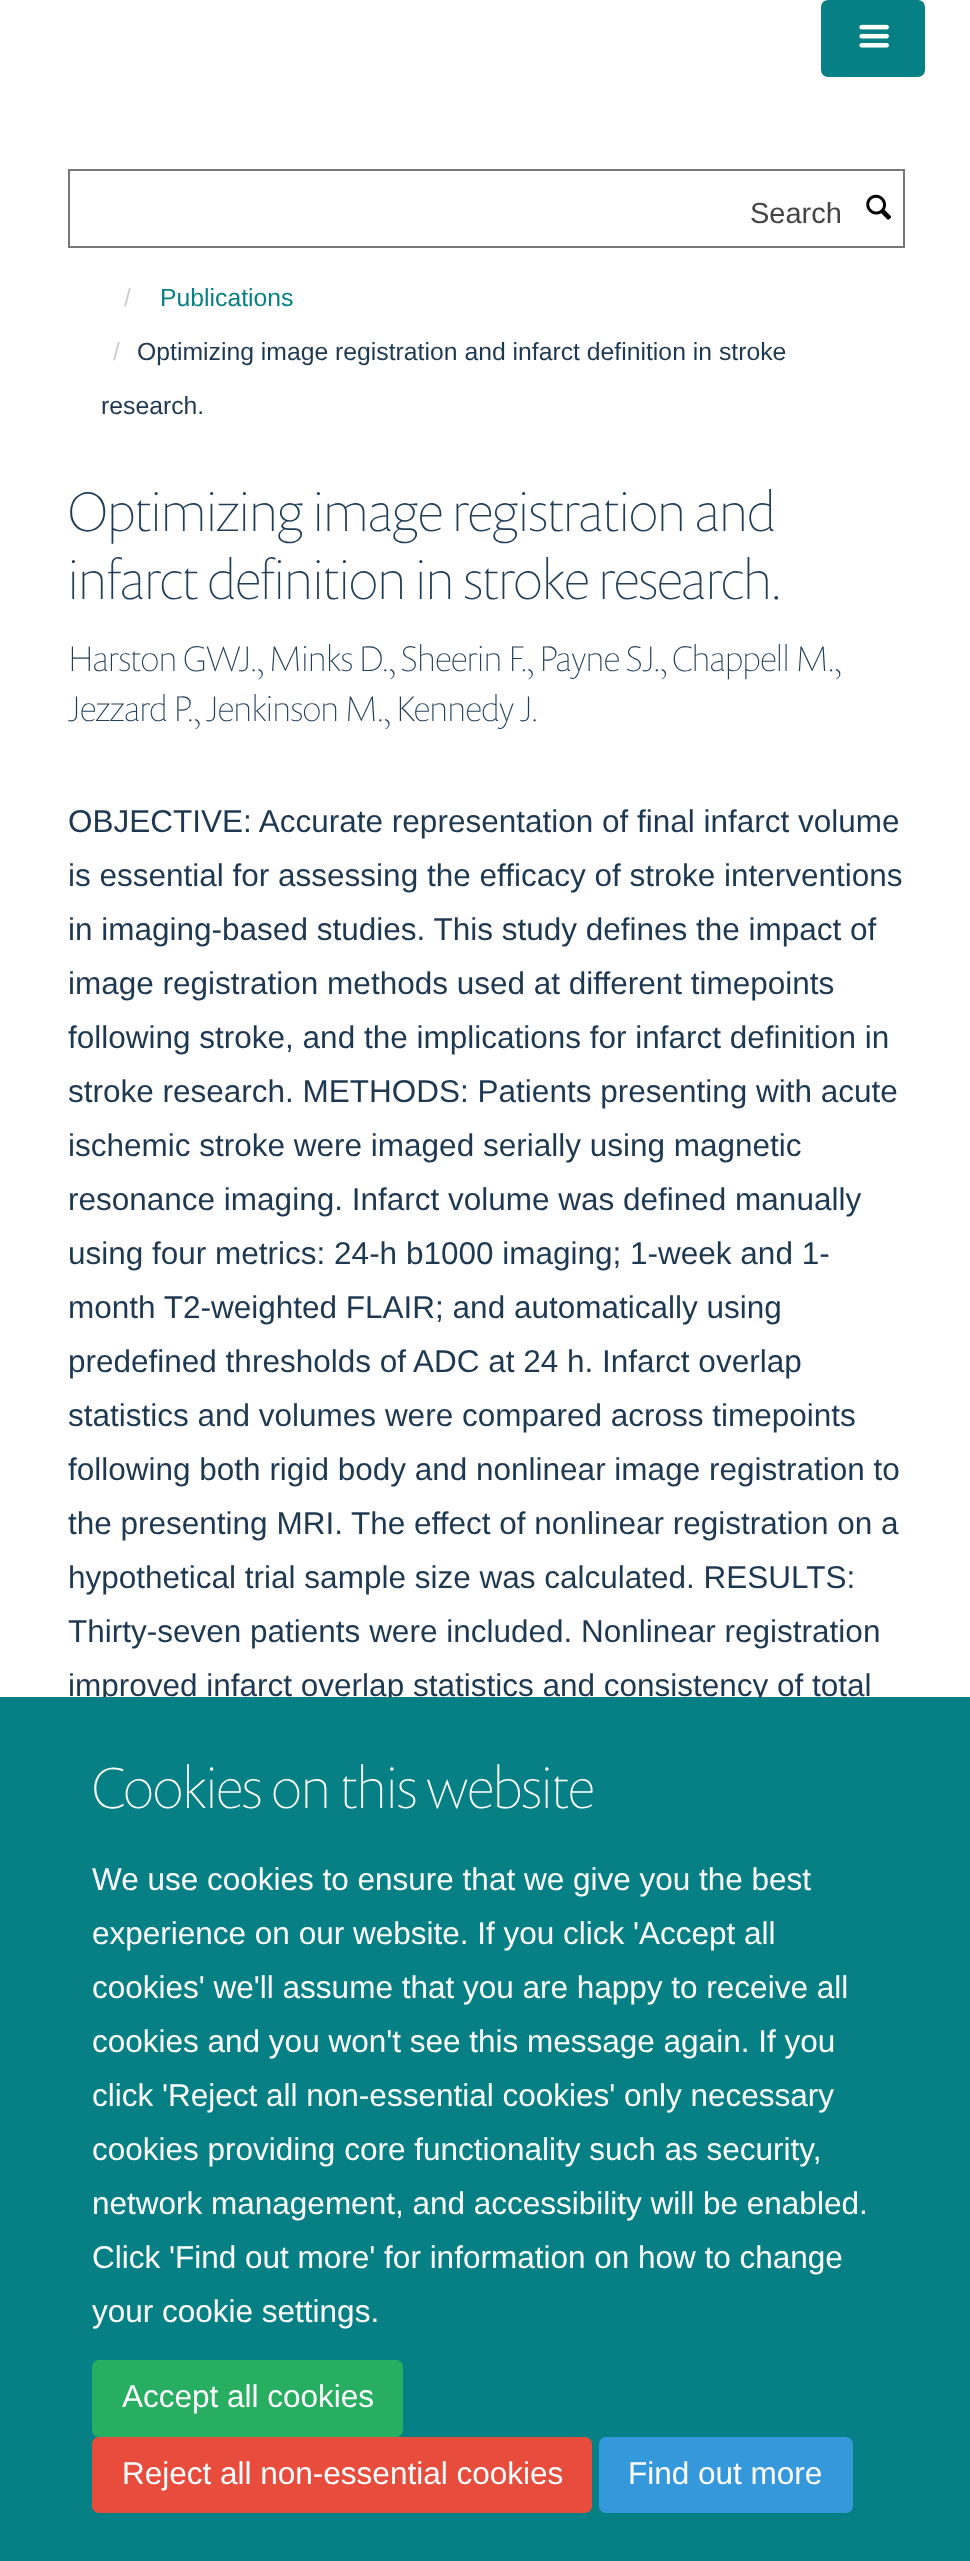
<svg xmlns="http://www.w3.org/2000/svg" width="970" height="2561" viewBox="0 0 970 2561">
  <rect width="100%" height="100%" fill="rgb(255,255,255)"/>
  <rect x="822" y="1" width="102" height="75" rx="6" fill="rgb(7,128,133)" stroke="rgb(7,128,133)" stroke-width="2"/>
  <image x="859" y="24" width="30" height="24" href="pic1.png"/>
  <rect x="69" y="170" width="835" height="77" fill="none" stroke="rgb(119,119,119)" stroke-width="2"/>
  <text x="750" y="223" font-family="Liberation Sans" font-size="29" fill="rgb(68,68,68)">Search</text>
  <image x="866" y="194" width="26" height="26" href="pic2.png"/>
  <text x="124" y="306" font-family="Liberation Sans" font-size="24.75" fill="rgb(204,204,204)">/</text>
  <text x="160" y="306" font-family="Liberation Sans" font-size="24.75" fill="rgb(7,128,133)">Publications</text>
  <text x="113" y="360" font-family="Liberation Sans" font-size="24.75" fill="rgb(204,204,204)">/</text>
  <g font-family="Liberation Sans" font-size="24.75" fill="rgb(29,56,80)">
    <text x="137" y="360">Optimizing image registration and infarct definition in stroke</text>
    <text x="101" y="414">research.</text>
  </g>
  <g font-family="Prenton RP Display" font-size="56.25" font-weight="100" fill="rgb(32,62,88)">
    <text>
      <tspan x="68" y="531">Optimizing image registration and</tspan>
      <tspan x="68" y="599">infarct definition in stroke research.</tspan>
    </text>
  </g>
  <g font-family="Prenton RP Display" font-size="36" font-weight="100" fill="rgb(32,62,88)">
    <text>
      <tspan x="68" y="671">Harston GWJ., Minks D., Sheerin F., Payne SJ., Chappell M.,</tspan>
      <tspan x="68" y="721">Jezzard P., Jenkinson M., Kennedy J.</tspan>
    </text>
  </g>
  <g font-family="Liberation Sans" font-size="31.5" fill="rgb(29,56,80)">
    <text>
      <tspan x="68" y="832">OBJECTIVE: Accurate representation of final infarct volume</tspan>
      <tspan x="68" y="886">is essential for assessing the efficacy of stroke interventions</tspan>
      <tspan x="68" y="940">in imaging-based studies. This study defines the impact of</tspan>
      <tspan x="68" y="994">image registration methods used at different timepoints</tspan>
      <tspan x="68" y="1048">following stroke, and the implications for infarct definition in</tspan>
      <tspan x="68" y="1102">stroke research. METHODS: Patients presenting with acute</tspan>
      <tspan x="68" y="1156">ischemic stroke were imaged serially using magnetic</tspan>
      <tspan x="68" y="1210">resonance imaging. Infarct volume was defined manually</tspan>
      <tspan x="68" y="1264">using four metrics: 24-h b1000 imaging; 1-week and 1-</tspan>
      <tspan x="68" y="1318">month T2-weighted FLAIR; and automatically using</tspan>
      <tspan x="68" y="1372">predefined thresholds of ADC at 24 h. Infarct overlap</tspan>
      <tspan x="68" y="1426">statistics and volumes were compared across timepoints</tspan>
      <tspan x="68" y="1480">following both rigid body and nonlinear image registration to</tspan>
      <tspan x="68" y="1534">the presenting MRI. The effect of nonlinear registration on a</tspan>
      <tspan x="68" y="1588">hypothetical trial sample size was calculated. RESULTS:</tspan>
      <tspan x="68" y="1642">Thirty-seven patients were included. Nonlinear registration</tspan>
      <tspan x="68" y="1696">improved infarct overlap statistics and consistency of total</tspan>
    </text>
  </g>
  <rect x="0" y="1697" width="970" height="864" fill="rgb(7,128,133)"/>
  <text x="92" y="1808" font-family="Prenton RP Display" font-size="58.5" font-weight="100" fill="rgb(255,255,255)">Cookies on this website</text>
  <g font-family="Liberation Sans" font-size="31.5" fill="rgb(255,255,255)">
    <text>
      <tspan x="92" y="1890">We use cookies to ensure that we give you the best</tspan>
      <tspan x="92" y="1944">experience on our website. If you click 'Accept all</tspan>
      <tspan x="92" y="1998">cookies' we'll assume that you are happy to receive all</tspan>
      <tspan x="92" y="2052">cookies and you won't see this message again. If you</tspan>
      <tspan x="92" y="2106">click 'Reject all non-essential cookies' only necessary</tspan>
      <tspan x="92" y="2160">cookies providing core functionality such as security,</tspan>
      <tspan x="92" y="2214">network management, and accessibility will be enabled.</tspan>
      <tspan x="92" y="2268">Click 'Find out more' for information on how to change</tspan>
      <tspan x="92" y="2322">your cookie settings.</tspan>
    </text>
  </g>
  <rect x="93" y="2361" width="309" height="75" rx="6" fill="rgb(39,174,96)" stroke="rgb(39,174,96)" stroke-width="2"/>
  <text x="122" y="2407" font-family="Liberation Sans" font-size="31.5" fill="rgb(255,255,255)">Accept all cookies</text>
  <rect x="93" y="2438" width="498" height="74" rx="6" fill="rgb(231,76,60)" stroke="rgb(231,76,60)" stroke-width="2"/>
  <text x="122" y="2484" font-family="Liberation Sans" font-size="31.5" fill="rgb(255,255,255)">Reject all non-essential cookies</text>
  <rect x="600" y="2438" width="252" height="74" rx="6" fill="rgb(52,152,219)" stroke="rgb(52,152,219)" stroke-width="2"/>
  <text x="628" y="2484" font-family="Liberation Sans" font-size="31.5" fill="rgb(255,255,255)">Find out more</text>
</svg>
